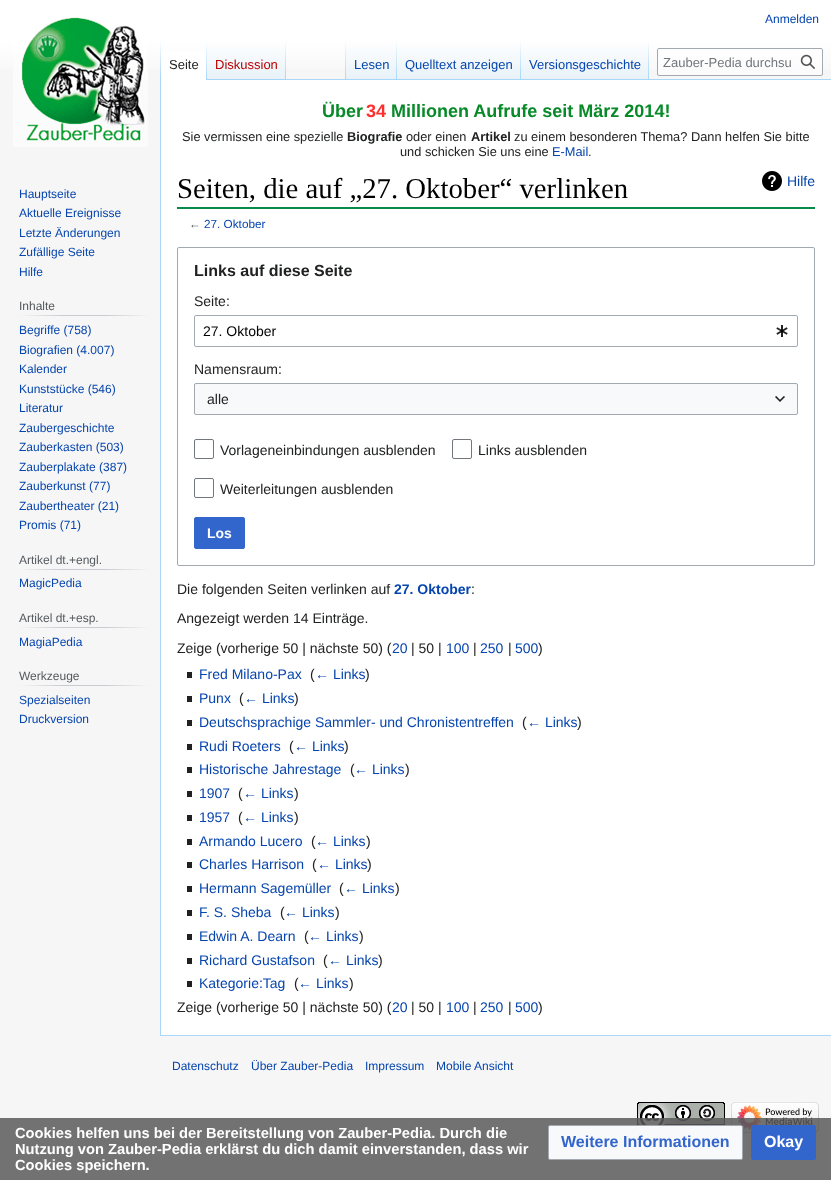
<svg xmlns="http://www.w3.org/2000/svg" width="831" height="1180" viewBox="0 0 831 1180">
  <defs>
    <linearGradient id="g1" gradientUnits="userSpaceOnUse" x1="416" y1="0" x2="416" y2="80"><stop offset="0.5" stop-color="rgb(255,255,255)"/><stop offset="1" stop-color="rgb(246,246,246)"/></linearGradient>
    <linearGradient id="g2" gradientUnits="userSpaceOnUse" x1="161" y1="40" x2="161" y2="80"><stop offset="0" stop-color="rgb(167,215,249)" stop-opacity="0"/><stop offset="1" stop-color="rgb(167,215,249)"/></linearGradient>
    <linearGradient id="g3" gradientUnits="userSpaceOnUse" x1="207" y1="40" x2="207" y2="80"><stop offset="0" stop-color="rgb(255,255,255)"/><stop offset="1" stop-color="rgb(167,215,249)"/></linearGradient>
    <linearGradient id="g4" gradientUnits="userSpaceOnUse" x1="247" y1="80" x2="247" y2="40"><stop offset="0" stop-color="rgb(119,193,246)"/><stop offset="0.03" stop-color="rgb(232,242,248)"/><stop offset="1" stop-color="rgb(255,255,255)"/></linearGradient>
    <linearGradient id="g5" gradientUnits="userSpaceOnUse" x1="286" y1="40" x2="286" y2="80"><stop offset="0" stop-color="rgb(167,215,249)" stop-opacity="0"/><stop offset="1" stop-color="rgb(167,215,249)"/></linearGradient>
    <linearGradient id="g6" gradientUnits="userSpaceOnUse" x1="346" y1="40" x2="346" y2="80"><stop offset="0" stop-color="rgb(167,215,249)" stop-opacity="0"/><stop offset="1" stop-color="rgb(167,215,249)"/></linearGradient>
    <linearGradient id="g7" gradientUnits="userSpaceOnUse" x1="372" y1="80" x2="372" y2="40"><stop offset="0" stop-color="rgb(119,193,246)"/><stop offset="0.03" stop-color="rgb(232,242,248)"/><stop offset="1" stop-color="rgb(255,255,255)"/></linearGradient>
    <linearGradient id="g8" gradientUnits="userSpaceOnUse" x1="397" y1="40" x2="397" y2="80"><stop offset="0" stop-color="rgb(167,215,249)" stop-opacity="0"/><stop offset="1" stop-color="rgb(167,215,249)"/></linearGradient>
    <linearGradient id="g9" gradientUnits="userSpaceOnUse" x1="459" y1="80" x2="459" y2="40"><stop offset="0" stop-color="rgb(119,193,246)"/><stop offset="0.03" stop-color="rgb(232,242,248)"/><stop offset="1" stop-color="rgb(255,255,255)"/></linearGradient>
    <linearGradient id="g10" gradientUnits="userSpaceOnUse" x1="521" y1="40" x2="521" y2="80"><stop offset="0" stop-color="rgb(167,215,249)" stop-opacity="0"/><stop offset="1" stop-color="rgb(167,215,249)"/></linearGradient>
    <linearGradient id="g11" gradientUnits="userSpaceOnUse" x1="585" y1="80" x2="585" y2="40"><stop offset="0" stop-color="rgb(119,193,246)"/><stop offset="0.03" stop-color="rgb(232,242,248)"/><stop offset="1" stop-color="rgb(255,255,255)"/></linearGradient>
    <linearGradient id="g12" gradientUnits="userSpaceOnUse" x1="649" y1="40" x2="649" y2="80"><stop offset="0" stop-color="rgb(167,215,249)" stop-opacity="0"/><stop offset="1" stop-color="rgb(167,215,249)"/></linearGradient>
    <linearGradient id="g13" gradientUnits="userSpaceOnUse" x1="19" y1="316" x2="150" y2="316"><stop offset="0" stop-color="rgb(246,246,246)"/><stop offset="0.33" stop-color="rgb(200,204,209)"/><stop offset="0.66" stop-color="rgb(200,204,209)"/><stop offset="1" stop-color="rgb(246,246,246)"/></linearGradient>
    <linearGradient id="g14" gradientUnits="userSpaceOnUse" x1="19" y1="570" x2="150" y2="570"><stop offset="0" stop-color="rgb(246,246,246)"/><stop offset="0.33" stop-color="rgb(200,204,209)"/><stop offset="0.66" stop-color="rgb(200,204,209)"/><stop offset="1" stop-color="rgb(246,246,246)"/></linearGradient>
    <linearGradient id="g15" gradientUnits="userSpaceOnUse" x1="19" y1="628" x2="150" y2="628"><stop offset="0" stop-color="rgb(246,246,246)"/><stop offset="0.33" stop-color="rgb(200,204,209)"/><stop offset="0.66" stop-color="rgb(200,204,209)"/><stop offset="1" stop-color="rgb(246,246,246)"/></linearGradient>
    <linearGradient id="g16" gradientUnits="userSpaceOnUse" x1="19" y1="686" x2="150" y2="686"><stop offset="0" stop-color="rgb(246,246,246)"/><stop offset="0.33" stop-color="rgb(200,204,209)"/><stop offset="0.66" stop-color="rgb(200,204,209)"/><stop offset="1" stop-color="rgb(246,246,246)"/></linearGradient>
  </defs>
  <rect width="100%" height="100%" fill="rgb(246,246,246)"/>
  <rect x="0" y="0" width="831" height="69" fill="url(#g1)"/>
  <text x="765" y="23" font-family="Liberation Sans" font-size="12" fill="rgb(6,69,173)">Anmelden</text>
  <rect x="160" y="1035" width="671" height="1" fill="rgb(167,215,249)"/>
  <rect x="160" y="79" width="1" height="957" fill="rgb(167,215,249)"/>
  <rect x="160" y="40" width="1" height="40" fill="url(#g2)"/>
  <rect x="161" y="51" width="45" height="29" fill="rgb(255,255,255)"/>
  <rect x="206" y="40" width="1" height="40" fill="url(#g3)"/>
  <text x="169" y="69" font-family="Liberation Sans" font-size="13" fill="rgb(32,33,34)">Seite</text>
  <rect x="207" y="46" width="79" height="34" fill="url(#g4)"/>
  <rect x="285" y="40" width="1" height="40" fill="url(#g5)"/>
  <text x="215" y="69" font-family="Liberation Sans" font-size="13" fill="rgb(186,0,0)">Diskussion</text>
  <rect x="286" y="79" width="545" height="1" fill="rgb(167,215,249)"/>
  <rect x="345" y="40" width="1" height="40" fill="url(#g6)"/>
  <rect x="346" y="46" width="51" height="33" fill="url(#g7)"/>
  <rect x="396" y="40" width="1" height="40" fill="url(#g8)"/>
  <text x="354" y="69" font-family="Liberation Sans" font-size="13" fill="rgb(6,69,173)">Lesen</text>
  <rect x="397" y="46" width="124" height="33" fill="url(#g9)"/>
  <rect x="520" y="40" width="1" height="40" fill="url(#g10)"/>
  <text x="405" y="69" font-family="Liberation Sans" font-size="13" fill="rgb(6,69,173)">Quelltext anzeigen</text>
  <rect x="521" y="46" width="128" height="33" fill="url(#g11)"/>
  <rect x="648" y="40" width="1" height="40" fill="url(#g12)"/>
  <text x="529" y="69" font-family="Liberation Sans" font-size="13" fill="rgb(6,69,173)">Versionsgeschichte</text>
  <rect x="657.5" y="48.5" width="165" height="27" rx="1.5" fill="rgba(255,255,255,0.5)" stroke="rgb(162,169,177)"/>
  <text x="663" y="67" font-family="Liberation Sans" font-size="13" fill="rgb(114,119,125)">Zauber-Pedia durchsu</text>
  <image x="800" y="54" width="15" height="15" href="pic1.png"/>
  <image x="13" y="17" width="135" height="130" href="pic2.png"/>
  <g font-family="Liberation Sans" font-size="12" fill="rgb(6,69,173)">
    <text>
      <tspan x="19" y="198">Hauptseite</tspan>
      <tspan x="19" y="217">Aktuelle Ereignisse</tspan>
      <tspan x="19" y="237">Letzte Änderungen</tspan>
      <tspan x="19" y="256">Zufällige Seite</tspan>
      <tspan x="19" y="276">Hilfe</tspan>
    </text>
  </g>
  <rect x="19" y="315" width="131" height="1" fill="url(#g13)"/>
  <text x="19" y="310" font-family="Liberation Sans" font-size="12" fill="rgb(84,89,93)">Inhalte</text>
  <g font-family="Liberation Sans" font-size="12" fill="rgb(6,69,173)">
    <text>
      <tspan x="19" y="334">Begriffe (758)</tspan>
      <tspan x="19" y="354">Biografien (4.007)</tspan>
      <tspan x="19" y="373">Kalender</tspan>
      <tspan x="19" y="393">Kunststücke (546)</tspan>
      <tspan x="19" y="412">Literatur</tspan>
      <tspan x="19" y="432">Zaubergeschichte</tspan>
      <tspan x="19" y="451">Zauberkasten (503)</tspan>
      <tspan x="19" y="471">Zauberplakate (387)</tspan>
      <tspan x="19" y="490">Zauberkunst (77)</tspan>
      <tspan x="19" y="510">Zaubertheater (21)</tspan>
      <tspan x="19" y="529">Promis (71)</tspan>
    </text>
  </g>
  <rect x="19" y="569" width="131" height="1" fill="url(#g14)"/>
  <text x="19" y="564" font-family="Liberation Sans" font-size="12" fill="rgb(84,89,93)">Artikel dt.+engl.</text>
  <text x="19" y="587" font-family="Liberation Sans" font-size="12" fill="rgb(6,69,173)">MagicPedia</text>
  <rect x="19" y="627" width="131" height="1" fill="url(#g15)"/>
  <text x="19" y="622" font-family="Liberation Sans" font-size="12" fill="rgb(84,89,93)">Artikel dt.+esp.</text>
  <text x="19" y="646" font-family="Liberation Sans" font-size="12" fill="rgb(6,69,173)">MagiaPedia</text>
  <rect x="19" y="685" width="131" height="1" fill="url(#g16)"/>
  <text x="19" y="680" font-family="Liberation Sans" font-size="12" fill="rgb(84,89,93)">Werkzeuge</text>
  <g font-family="Liberation Sans" font-size="12" fill="rgb(6,69,173)">
    <text>
      <tspan x="19" y="704">Spezialseiten</tspan>
      <tspan x="19" y="723">Druckversion</tspan>
    </text>
  </g>
  <rect x="161" y="80" width="670" height="955" fill="rgb(255,255,255)"/>
  <text x="322" y="117" font-family="Liberation Sans" font-size="18" font-weight="bold" fill="rgb(8,138,41)">Über</text>
  <text x="366" y="117" font-family="Liberation Sans" font-size="18" font-weight="bold" fill="rgb(254,46,46)">34</text>
  <text x="391" y="117" font-family="Liberation Sans" font-size="18" font-weight="bold" fill="rgb(8,138,41)">Millionen Aufrufe seit März 2014!</text>
  <text x="182" y="141" font-family="Liberation Sans" font-size="12.8" fill="rgb(32,33,34)">Sie vermissen eine spezielle</text>
  <text x="347" y="141" font-family="Liberation Sans" font-size="12.8" font-weight="bold" fill="rgb(32,33,34)">Biografie</text>
  <text x="406" y="141" font-family="Liberation Sans" font-size="12.8" fill="rgb(32,33,34)">oder einen</text>
  <text x="471" y="141" font-family="Liberation Sans" font-size="12.8" font-weight="bold" fill="rgb(32,33,34)">Artikel</text>
  <g font-family="Liberation Sans" font-size="12.8" fill="rgb(32,33,34)">
    <text x="514" y="141">zu einem besonderen Thema? Dann helfen Sie bitte</text>
    <text x="400" y="156">und schicken Sie uns eine</text>
  </g>
  <text x="552" y="156" font-family="Liberation Sans" font-size="12.8" fill="rgb(6,69,173)">E-Mail</text>
  <text x="588" y="156" font-family="Liberation Sans" font-size="12.8" fill="rgb(32,33,34)">.</text>
  <rect x="177" y="207" width="638" height="2" fill="rgb(8,138,75)"/>
  <text x="177" y="198" font-family="Liberation Serif" font-size="28.75" fill="rgb(0,0,0)">Seiten, die auf „27. Oktober“ verlinken</text>
  <image x="762" y="171" width="20" height="20" href="pic3.png"/>
  <text x="787" y="186" font-family="Liberation Sans" font-size="14" fill="rgb(6,69,173)">Hilfe</text>
  <text x="189" y="228" font-family="Liberation Sans" font-size="11.75" fill="rgb(84,89,93)">←</text>
  <text x="204" y="228" font-family="Liberation Sans" font-size="11.75" fill="rgb(6,69,173)">27. Oktober</text>
  <rect x="177.5" y="247.5" width="637" height="318" rx="1.5" fill="none" stroke="rgb(162,169,177)"/>
  <text x="194" y="276" font-family="Liberation Sans" font-size="16" font-weight="bold" fill="rgb(32,33,34)">Links auf diese Seite</text>
  <text x="194" y="306" font-family="Liberation Sans" font-size="14" fill="rgb(32,33,34)">Seite:</text>
  <rect x="194.5" y="315.5" width="603" height="31" rx="1.5" fill="none" stroke="rgb(162,169,177)"/>
  <text x="203" y="336" font-family="Liberation Sans" font-size="14" fill="rgb(0,0,0)">27. Oktober</text>
  <image x="776" y="325" width="12" height="12" href="pic4.png"/>
  <text x="194" y="374" font-family="Liberation Sans" font-size="14" fill="rgb(32,33,34)">Namensraum:</text>
  <rect x="194" y="383" width="604" height="32" fill="rgb(248,249,250)"/>
  <rect x="194.5" y="383.5" width="603" height="31" rx="1.5" fill="none" stroke="rgb(162,169,177)"/>
  <text x="207" y="404" font-family="Liberation Sans" font-size="14" fill="rgb(32,33,34)">alle</text>
  <image x="775" y="396" width="10" height="6" href="pic5.png"/>
  <rect x="194.5" y="439.5" width="19" height="19" rx="1.5" fill="none" stroke="rgb(114,119,125)"/>
  <text x="220" y="455" font-family="Liberation Sans" font-size="14" fill="rgb(32,33,34)">Vorlageneinbindungen ausblenden</text>
  <rect x="452.5" y="439.5" width="19" height="19" rx="1.5" fill="none" stroke="rgb(114,119,125)"/>
  <text x="478" y="455" font-family="Liberation Sans" font-size="14" fill="rgb(32,33,34)">Links ausblenden</text>
  <rect x="194.5" y="478.5" width="19" height="19" rx="1.5" fill="none" stroke="rgb(114,119,125)"/>
  <text x="220" y="494" font-family="Liberation Sans" font-size="14" fill="rgb(32,33,34)">Weiterleitungen ausblenden</text>
  <rect x="194.5" y="517.5" width="50" height="31" rx="1.5" fill="rgb(51,102,204)" stroke="rgb(51,102,204)"/>
  <text x="207" y="538" font-family="Liberation Sans" font-size="14" font-weight="bold" fill="rgb(255,255,255)">Los</text>
  <text x="177" y="594" font-family="Liberation Sans" font-size="14" fill="rgb(32,33,34)">Die folgenden Seiten verlinken auf</text>
  <text x="394" y="594" font-family="Liberation Sans" font-size="14" font-weight="bold" fill="rgb(6,69,173)">27. Oktober</text>
  <g font-family="Liberation Sans" font-size="14" fill="rgb(32,33,34)">
    <text x="471" y="594">:</text>
    <text x="177" y="623">Angezeigt werden 14 Einträge.</text>
    <text x="177" y="653">Zeige (vorherige 50 | nächste 50) (</text>
  </g>
  <text x="392" y="653" font-family="Liberation Sans" font-size="14" fill="rgb(6,69,173)">20</text>
  <text x="411" y="653" font-family="Liberation Sans" font-size="14" fill="rgb(32,33,34)">| 50 |</text>
  <text x="446" y="653" font-family="Liberation Sans" font-size="14" fill="rgb(6,69,173)">100</text>
  <text x="473" y="653" font-family="Liberation Sans" font-size="14" fill="rgb(32,33,34)">|</text>
  <text x="480" y="653" font-family="Liberation Sans" font-size="14" fill="rgb(6,69,173)">250</text>
  <text x="508" y="653" font-family="Liberation Sans" font-size="14" fill="rgb(32,33,34)">|</text>
  <text x="515" y="653" font-family="Liberation Sans" font-size="14" fill="rgb(6,69,173)">500</text>
  <text x="538" y="653" font-family="Liberation Sans" font-size="14" fill="rgb(32,33,34)">)</text>
  <rect x="187" y="672" width="5" height="6" fill="rgb(32,33,34)"/>
  <text x="199" y="679" font-family="Liberation Sans" font-size="14" fill="rgb(6,69,173)">Fred Milano-Pax</text>
  <text x="310" y="679" font-family="Liberation Sans" font-size="14" fill="rgb(32,33,34)">(</text>
  <text x="315" y="679" font-family="Liberation Sans" font-size="14" fill="rgb(6,69,173)">← Links</text>
  <text x="365" y="679" font-family="Liberation Sans" font-size="14" fill="rgb(32,33,34)">)</text>
  <rect x="187" y="696" width="5" height="6" fill="rgb(32,33,34)"/>
  <text x="199" y="703" font-family="Liberation Sans" font-size="14" fill="rgb(6,69,173)">Punx</text>
  <text x="239" y="703" font-family="Liberation Sans" font-size="14" fill="rgb(32,33,34)">(</text>
  <text x="244" y="703" font-family="Liberation Sans" font-size="14" fill="rgb(6,69,173)">← Links</text>
  <text x="294" y="703" font-family="Liberation Sans" font-size="14" fill="rgb(32,33,34)">)</text>
  <rect x="187" y="720" width="5" height="6" fill="rgb(32,33,34)"/>
  <text x="199" y="727" font-family="Liberation Sans" font-size="14" fill="rgb(6,69,173)">Deutschsprachige Sammler- und Chronistentreffen</text>
  <text x="522" y="727" font-family="Liberation Sans" font-size="14" fill="rgb(32,33,34)">(</text>
  <text x="527" y="727" font-family="Liberation Sans" font-size="14" fill="rgb(6,69,173)">← Links</text>
  <text x="577" y="727" font-family="Liberation Sans" font-size="14" fill="rgb(32,33,34)">)</text>
  <rect x="187" y="744" width="5" height="6" fill="rgb(32,33,34)"/>
  <text x="199" y="751" font-family="Liberation Sans" font-size="14" fill="rgb(6,69,173)">Rudi Roeters</text>
  <text x="289" y="751" font-family="Liberation Sans" font-size="14" fill="rgb(32,33,34)">(</text>
  <text x="294" y="751" font-family="Liberation Sans" font-size="14" fill="rgb(6,69,173)">← Links</text>
  <text x="344" y="751" font-family="Liberation Sans" font-size="14" fill="rgb(32,33,34)">)</text>
  <rect x="187" y="767" width="5" height="6" fill="rgb(32,33,34)"/>
  <text x="199" y="774" font-family="Liberation Sans" font-size="14" fill="rgb(6,69,173)">Historische Jahrestage</text>
  <text x="350" y="774" font-family="Liberation Sans" font-size="14" fill="rgb(32,33,34)">(</text>
  <text x="354" y="774" font-family="Liberation Sans" font-size="14" fill="rgb(6,69,173)">← Links</text>
  <text x="405" y="774" font-family="Liberation Sans" font-size="14" fill="rgb(32,33,34)">)</text>
  <rect x="187" y="791" width="5" height="6" fill="rgb(32,33,34)"/>
  <text x="199" y="798" font-family="Liberation Sans" font-size="14" fill="rgb(6,69,173)">1907</text>
  <text x="238" y="798" font-family="Liberation Sans" font-size="14" fill="rgb(32,33,34)">(</text>
  <text x="243" y="798" font-family="Liberation Sans" font-size="14" fill="rgb(6,69,173)">← Links</text>
  <text x="294" y="798" font-family="Liberation Sans" font-size="14" fill="rgb(32,33,34)">)</text>
  <rect x="187" y="815" width="5" height="6" fill="rgb(32,33,34)"/>
  <text x="199" y="822" font-family="Liberation Sans" font-size="14" fill="rgb(6,69,173)">1957</text>
  <text x="238" y="822" font-family="Liberation Sans" font-size="14" fill="rgb(32,33,34)">(</text>
  <text x="243" y="822" font-family="Liberation Sans" font-size="14" fill="rgb(6,69,173)">← Links</text>
  <text x="294" y="822" font-family="Liberation Sans" font-size="14" fill="rgb(32,33,34)">)</text>
  <rect x="187" y="839" width="5" height="6" fill="rgb(32,33,34)"/>
  <text x="199" y="846" font-family="Liberation Sans" font-size="14" fill="rgb(6,69,173)">Armando Lucero</text>
  <text x="311" y="846" font-family="Liberation Sans" font-size="14" fill="rgb(32,33,34)">(</text>
  <text x="315" y="846" font-family="Liberation Sans" font-size="14" fill="rgb(6,69,173)">← Links</text>
  <text x="366" y="846" font-family="Liberation Sans" font-size="14" fill="rgb(32,33,34)">)</text>
  <rect x="187" y="862" width="5" height="6" fill="rgb(32,33,34)"/>
  <text x="199" y="869" font-family="Liberation Sans" font-size="14" fill="rgb(6,69,173)">Charles Harrison</text>
  <text x="312" y="869" font-family="Liberation Sans" font-size="14" fill="rgb(32,33,34)">(</text>
  <text x="317" y="869" font-family="Liberation Sans" font-size="14" fill="rgb(6,69,173)">← Links</text>
  <text x="367" y="869" font-family="Liberation Sans" font-size="14" fill="rgb(32,33,34)">)</text>
  <rect x="187" y="886" width="5" height="6" fill="rgb(32,33,34)"/>
  <text x="199" y="893" font-family="Liberation Sans" font-size="14" fill="rgb(6,69,173)">Hermann Sagemüller</text>
  <text x="339" y="893" font-family="Liberation Sans" font-size="14" fill="rgb(32,33,34)">(</text>
  <text x="344" y="893" font-family="Liberation Sans" font-size="14" fill="rgb(6,69,173)">← Links</text>
  <text x="395" y="893" font-family="Liberation Sans" font-size="14" fill="rgb(32,33,34)">)</text>
  <rect x="187" y="910" width="5" height="6" fill="rgb(32,33,34)"/>
  <text x="199" y="917" font-family="Liberation Sans" font-size="14" fill="rgb(6,69,173)">F. S. Sheba</text>
  <text x="280" y="917" font-family="Liberation Sans" font-size="14" fill="rgb(32,33,34)">(</text>
  <text x="284" y="917" font-family="Liberation Sans" font-size="14" fill="rgb(6,69,173)">← Links</text>
  <text x="335" y="917" font-family="Liberation Sans" font-size="14" fill="rgb(32,33,34)">)</text>
  <rect x="187" y="934" width="5" height="6" fill="rgb(32,33,34)"/>
  <text x="199" y="941" font-family="Liberation Sans" font-size="14" fill="rgb(6,69,173)">Edwin A. Dearn</text>
  <text x="304" y="941" font-family="Liberation Sans" font-size="14" fill="rgb(32,33,34)">(</text>
  <text x="308" y="941" font-family="Liberation Sans" font-size="14" fill="rgb(6,69,173)">← Links</text>
  <text x="359" y="941" font-family="Liberation Sans" font-size="14" fill="rgb(32,33,34)">)</text>
  <rect x="187" y="958" width="5" height="6" fill="rgb(32,33,34)"/>
  <text x="199" y="965" font-family="Liberation Sans" font-size="14" fill="rgb(6,69,173)">Richard Gustafson</text>
  <text x="323" y="965" font-family="Liberation Sans" font-size="14" fill="rgb(32,33,34)">(</text>
  <text x="328" y="965" font-family="Liberation Sans" font-size="14" fill="rgb(6,69,173)">← Links</text>
  <text x="378" y="965" font-family="Liberation Sans" font-size="14" fill="rgb(32,33,34)">)</text>
  <rect x="187" y="981" width="5" height="6" fill="rgb(32,33,34)"/>
  <text x="199" y="988" font-family="Liberation Sans" font-size="14" fill="rgb(6,69,173)">Kategorie:Tag</text>
  <text x="294" y="988" font-family="Liberation Sans" font-size="14" fill="rgb(32,33,34)">(</text>
  <text x="298" y="988" font-family="Liberation Sans" font-size="14" fill="rgb(6,69,173)">← Links</text>
  <g font-family="Liberation Sans" font-size="14" fill="rgb(32,33,34)">
    <text x="349" y="988">)</text>
    <text x="177" y="1012">Zeige (vorherige 50 | nächste 50) (</text>
  </g>
  <text x="392" y="1012" font-family="Liberation Sans" font-size="14" fill="rgb(6,69,173)">20</text>
  <text x="411" y="1012" font-family="Liberation Sans" font-size="14" fill="rgb(32,33,34)">| 50 |</text>
  <text x="446" y="1012" font-family="Liberation Sans" font-size="14" fill="rgb(6,69,173)">100</text>
  <text x="473" y="1012" font-family="Liberation Sans" font-size="14" fill="rgb(32,33,34)">|</text>
  <text x="480" y="1012" font-family="Liberation Sans" font-size="14" fill="rgb(6,69,173)">250</text>
  <text x="508" y="1012" font-family="Liberation Sans" font-size="14" fill="rgb(32,33,34)">|</text>
  <text x="515" y="1012" font-family="Liberation Sans" font-size="14" fill="rgb(6,69,173)">500</text>
  <text x="538" y="1012" font-family="Liberation Sans" font-size="14" fill="rgb(32,33,34)">)</text>
  <g font-family="Liberation Sans" font-size="12" fill="rgb(6,69,173)">
    <text x="172" y="1070">Datenschutz</text>
    <text x="251" y="1070">Über Zauber-Pedia</text>
    <text x="365" y="1070">Impressum</text>
    <text x="436" y="1070">Mobile Ansicht</text>
  </g>
  <image x="637" y="1102" width="88" height="23" href="pic6.png"/>
  <image x="731" y="1102" width="88" height="31" href="pic7.png"/>
  <rect x="0" y="1118" width="831" height="62" fill="rgba(90,90,90,0.85)"/>
  <g font-family="Liberation Sans" font-size="14.7" font-weight="bold" fill="rgb(255,255,255)">
    <text>
      <tspan x="15" y="1138">Cookies helfen uns bei der Bereitstellung von Zauber-Pedia. Durch die</tspan>
      <tspan x="15" y="1154">Nutzung von Zauber-Pedia erklärst du dich damit einverstanden, dass wir</tspan>
      <tspan x="15" y="1170">Cookies speichern.</tspan>
    </text>
  </g>
  <rect x="548.5" y="1125.5" width="194" height="34" rx="1.5" fill="rgb(248,249,250)" stroke="rgb(162,169,177)"/>
  <text x="561" y="1147" font-family="Liberation Sans" font-size="16" font-weight="bold" fill="rgb(51,102,204)">Weitere Informationen</text>
  <rect x="751.5" y="1125.5" width="64" height="34" rx="1.5" fill="rgb(51,102,204)" stroke="rgb(51,102,204)"/>
  <text x="764" y="1147" font-family="Liberation Sans" font-size="16" font-weight="bold" fill="rgb(255,255,255)">Okay</text>
</svg>
